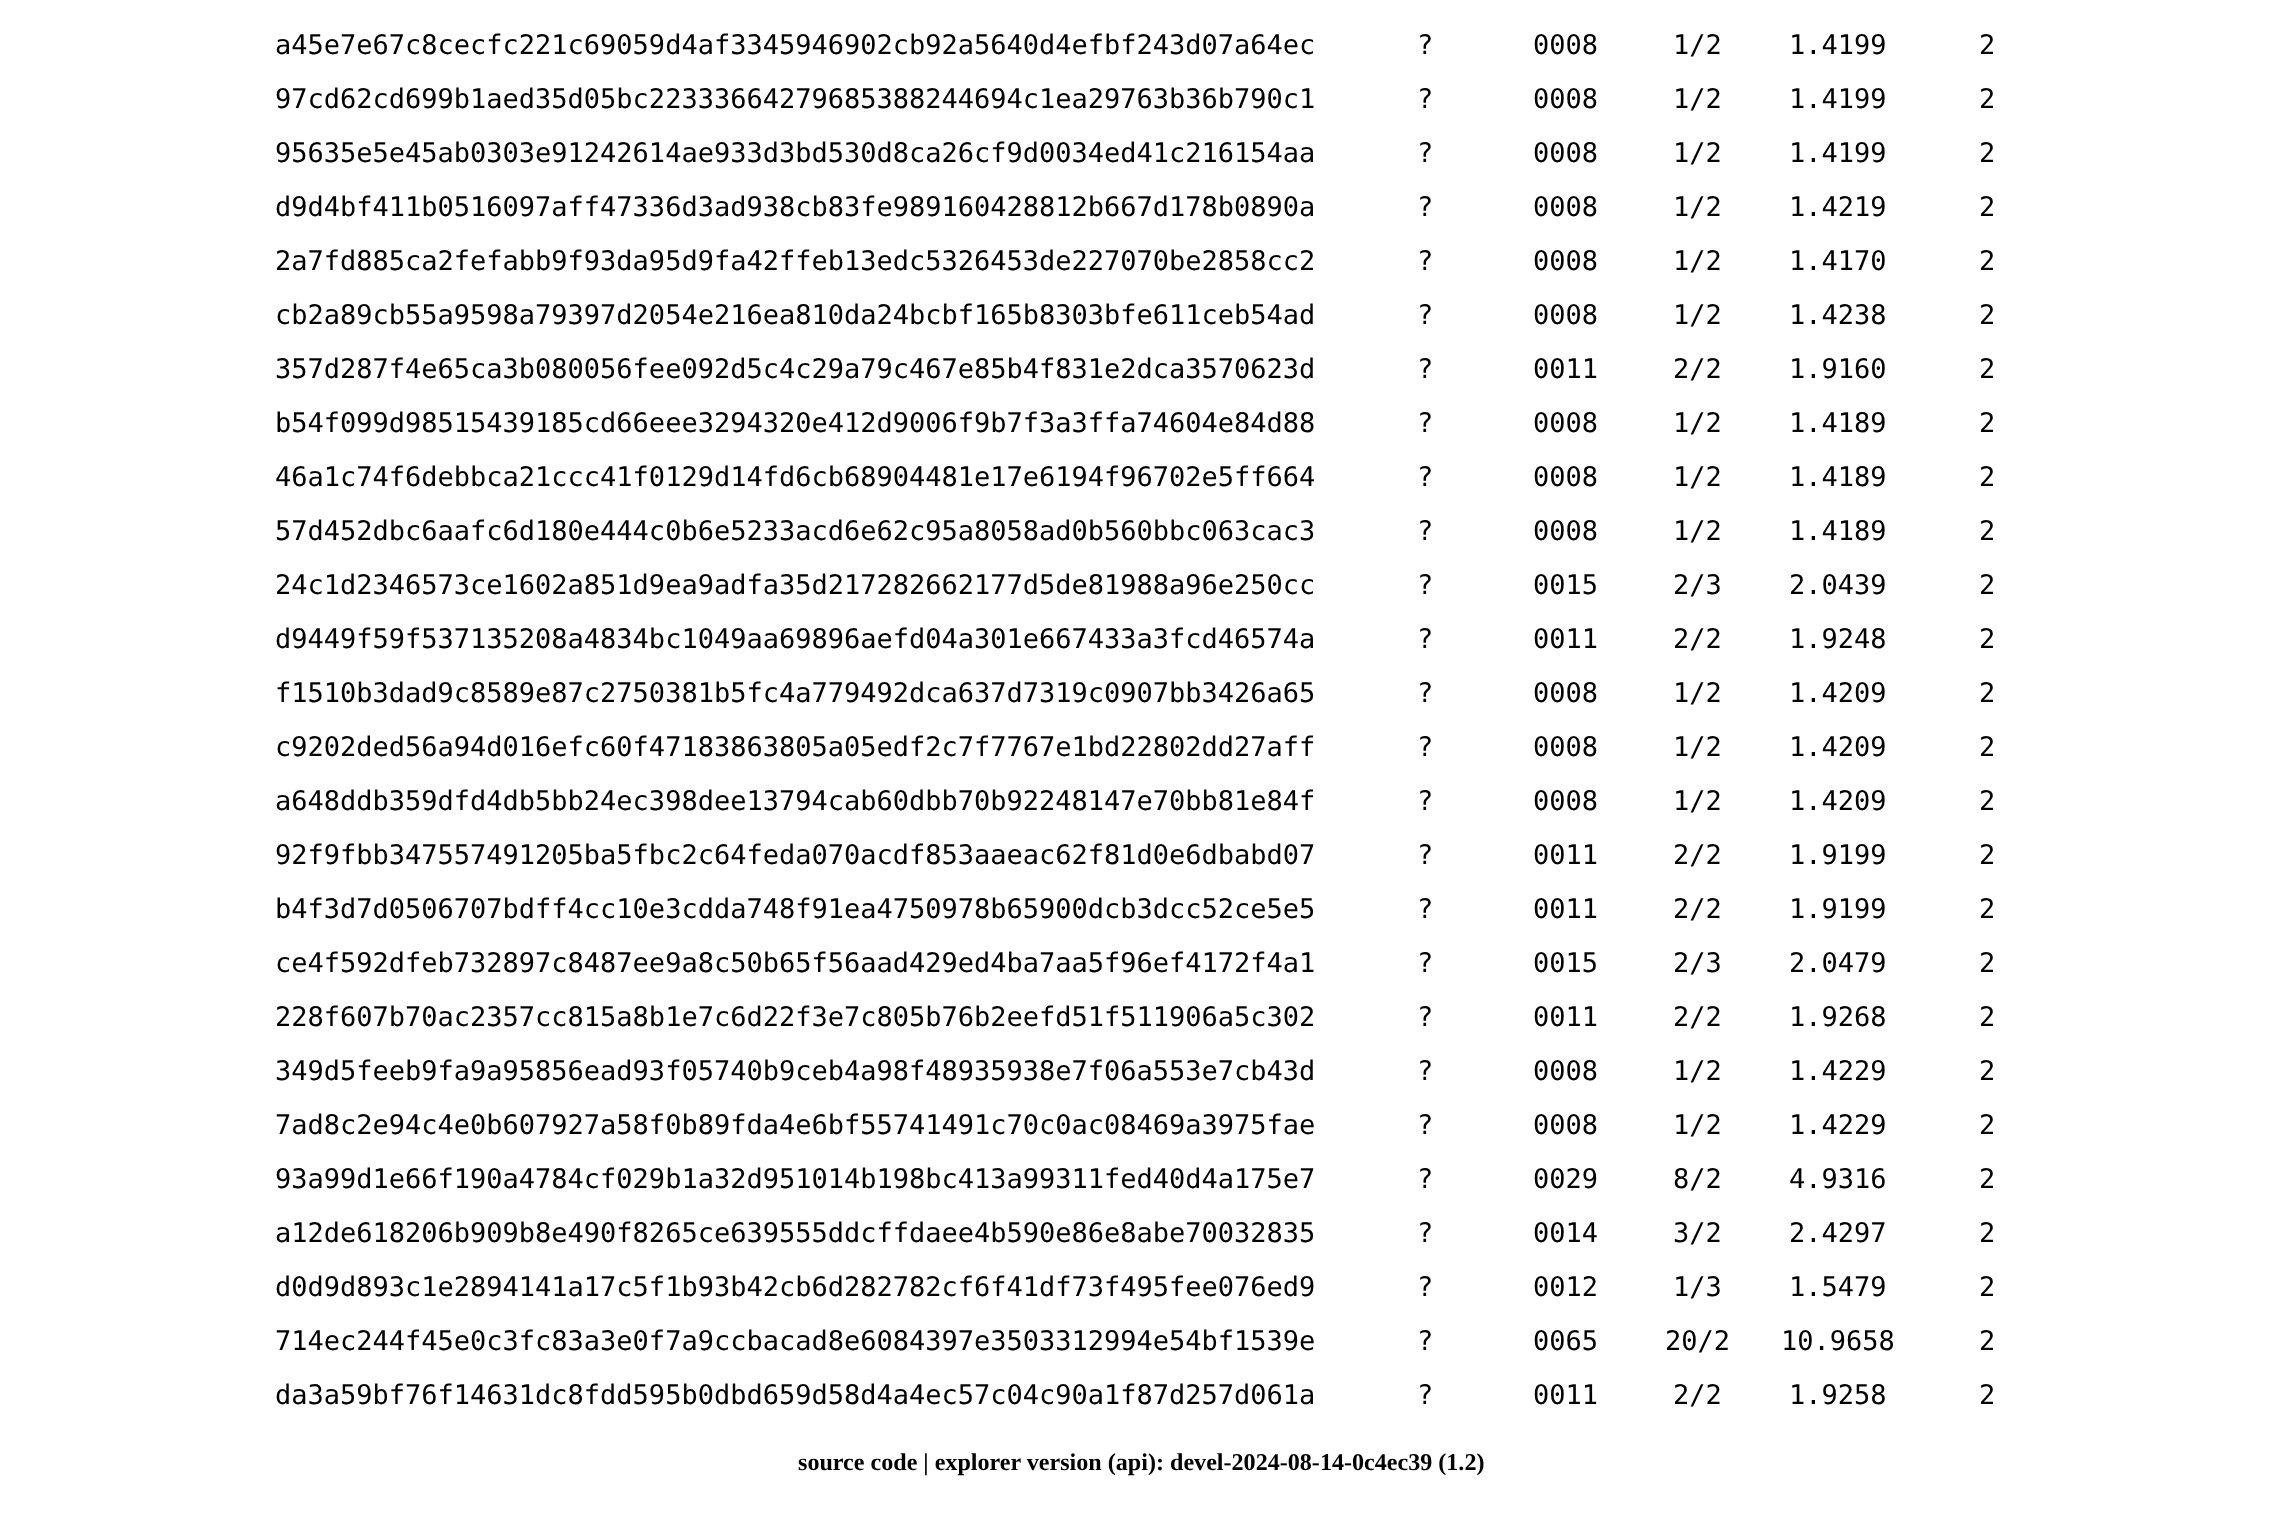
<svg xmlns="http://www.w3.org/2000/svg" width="2283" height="1529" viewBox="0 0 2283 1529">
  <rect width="100%" height="100%" fill="rgb(255,255,255)"/>
  <g font-family="DejaVu Sans Mono" font-size="27" fill="rgb(0,0,0)">
    <text x="275" y="54">a45e7e67c8cecfc221c69059d4af3345946902cb92a5640d4efbf243d07a64ec</text>
    <text x="1417" y="54">?</text>
    <text x="1533" y="54">0008</text>
    <text x="1673" y="54">1/2</text>
    <text x="1789" y="54">1.4199</text>
    <text x="1979" y="54">2</text>
    <text x="275" y="108">97cd62cd699b1aed35d05bc22333664279685388244694c1ea29763b36b790c1</text>
    <text x="1417" y="108">?</text>
    <text x="1533" y="108">0008</text>
    <text x="1673" y="108">1/2</text>
    <text x="1789" y="108">1.4199</text>
    <text x="1979" y="108">2</text>
    <text x="275" y="162">95635e5e45ab0303e91242614ae933d3bd530d8ca26cf9d0034ed41c216154aa</text>
    <text x="1417" y="162">?</text>
    <text x="1533" y="162">0008</text>
    <text x="1673" y="162">1/2</text>
    <text x="1789" y="162">1.4199</text>
    <text x="1979" y="162">2</text>
    <text x="275" y="216">d9d4bf411b0516097aff47336d3ad938cb83fe989160428812b667d178b0890a</text>
    <text x="1417" y="216">?</text>
    <text x="1533" y="216">0008</text>
    <text x="1673" y="216">1/2</text>
    <text x="1789" y="216">1.4219</text>
    <text x="1979" y="216">2</text>
    <text x="275" y="270">2a7fd885ca2fefabb9f93da95d9fa42ffeb13edc5326453de227070be2858cc2</text>
    <text x="1417" y="270">?</text>
    <text x="1533" y="270">0008</text>
    <text x="1673" y="270">1/2</text>
    <text x="1789" y="270">1.4170</text>
    <text x="1979" y="270">2</text>
    <text x="275" y="324">cb2a89cb55a9598a79397d2054e216ea810da24bcbf165b8303bfe611ceb54ad</text>
    <text x="1417" y="324">?</text>
    <text x="1533" y="324">0008</text>
    <text x="1673" y="324">1/2</text>
    <text x="1789" y="324">1.4238</text>
    <text x="1979" y="324">2</text>
    <text x="275" y="378">357d287f4e65ca3b080056fee092d5c4c29a79c467e85b4f831e2dca3570623d</text>
    <text x="1417" y="378">?</text>
    <text x="1533" y="378">0011</text>
    <text x="1673" y="378">2/2</text>
    <text x="1789" y="378">1.9160</text>
    <text x="1979" y="378">2</text>
    <text x="275" y="432">b54f099d98515439185cd66eee3294320e412d9006f9b7f3a3ffa74604e84d88</text>
    <text x="1417" y="432">?</text>
    <text x="1533" y="432">0008</text>
    <text x="1673" y="432">1/2</text>
    <text x="1789" y="432">1.4189</text>
    <text x="1979" y="432">2</text>
    <text x="275" y="486">46a1c74f6debbca21ccc41f0129d14fd6cb68904481e17e6194f96702e5ff664</text>
    <text x="1417" y="486">?</text>
    <text x="1533" y="486">0008</text>
    <text x="1673" y="486">1/2</text>
    <text x="1789" y="486">1.4189</text>
    <text x="1979" y="486">2</text>
    <text x="275" y="540">57d452dbc6aafc6d180e444c0b6e5233acd6e62c95a8058ad0b560bbc063cac3</text>
    <text x="1417" y="540">?</text>
    <text x="1533" y="540">0008</text>
    <text x="1673" y="540">1/2</text>
    <text x="1789" y="540">1.4189</text>
    <text x="1979" y="540">2</text>
    <text x="275" y="594">24c1d2346573ce1602a851d9ea9adfa35d217282662177d5de81988a96e250cc</text>
    <text x="1417" y="594">?</text>
    <text x="1533" y="594">0015</text>
    <text x="1673" y="594">2/3</text>
    <text x="1789" y="594">2.0439</text>
    <text x="1979" y="594">2</text>
    <text x="275" y="648">d9449f59f537135208a4834bc1049aa69896aefd04a301e667433a3fcd46574a</text>
    <text x="1417" y="648">?</text>
    <text x="1533" y="648">0011</text>
    <text x="1673" y="648">2/2</text>
    <text x="1789" y="648">1.9248</text>
    <text x="1979" y="648">2</text>
    <text x="275" y="702">f1510b3dad9c8589e87c2750381b5fc4a779492dca637d7319c0907bb3426a65</text>
    <text x="1417" y="702">?</text>
    <text x="1533" y="702">0008</text>
    <text x="1673" y="702">1/2</text>
    <text x="1789" y="702">1.4209</text>
    <text x="1979" y="702">2</text>
    <text x="275" y="756">c9202ded56a94d016efc60f47183863805a05edf2c7f7767e1bd22802dd27aff</text>
    <text x="1417" y="756">?</text>
    <text x="1533" y="756">0008</text>
    <text x="1673" y="756">1/2</text>
    <text x="1789" y="756">1.4209</text>
    <text x="1979" y="756">2</text>
    <text x="275" y="810">a648ddb359dfd4db5bb24ec398dee13794cab60dbb70b92248147e70bb81e84f</text>
    <text x="1417" y="810">?</text>
    <text x="1533" y="810">0008</text>
    <text x="1673" y="810">1/2</text>
    <text x="1789" y="810">1.4209</text>
    <text x="1979" y="810">2</text>
    <text x="275" y="864">92f9fbb347557491205ba5fbc2c64feda070acdf853aaeac62f81d0e6dbabd07</text>
    <text x="1417" y="864">?</text>
    <text x="1533" y="864">0011</text>
    <text x="1673" y="864">2/2</text>
    <text x="1789" y="864">1.9199</text>
    <text x="1979" y="864">2</text>
    <text x="275" y="918">b4f3d7d0506707bdff4cc10e3cdda748f91ea4750978b65900dcb3dcc52ce5e5</text>
    <text x="1417" y="918">?</text>
    <text x="1533" y="918">0011</text>
    <text x="1673" y="918">2/2</text>
    <text x="1789" y="918">1.9199</text>
    <text x="1979" y="918">2</text>
    <text x="275" y="972">ce4f592dfeb732897c8487ee9a8c50b65f56aad429ed4ba7aa5f96ef4172f4a1</text>
    <text x="1417" y="972">?</text>
    <text x="1533" y="972">0015</text>
    <text x="1673" y="972">2/3</text>
    <text x="1789" y="972">2.0479</text>
    <text x="1979" y="972">2</text>
    <text x="275" y="1026">228f607b70ac2357cc815a8b1e7c6d22f3e7c805b76b2eefd51f511906a5c302</text>
    <text x="1417" y="1026">?</text>
    <text x="1533" y="1026">0011</text>
    <text x="1673" y="1026">2/2</text>
    <text x="1789" y="1026">1.9268</text>
    <text x="1979" y="1026">2</text>
    <text x="275" y="1080">349d5feeb9fa9a95856ead93f05740b9ceb4a98f48935938e7f06a553e7cb43d</text>
    <text x="1417" y="1080">?</text>
    <text x="1533" y="1080">0008</text>
    <text x="1673" y="1080">1/2</text>
    <text x="1789" y="1080">1.4229</text>
    <text x="1979" y="1080">2</text>
    <text x="275" y="1134">7ad8c2e94c4e0b607927a58f0b89fda4e6bf55741491c70c0ac08469a3975fae</text>
    <text x="1417" y="1134">?</text>
    <text x="1533" y="1134">0008</text>
    <text x="1673" y="1134">1/2</text>
    <text x="1789" y="1134">1.4229</text>
    <text x="1979" y="1134">2</text>
    <text x="275" y="1188">93a99d1e66f190a4784cf029b1a32d951014b198bc413a99311fed40d4a175e7</text>
    <text x="1417" y="1188">?</text>
    <text x="1533" y="1188">0029</text>
    <text x="1673" y="1188">8/2</text>
    <text x="1789" y="1188">4.9316</text>
    <text x="1979" y="1188">2</text>
    <text x="275" y="1242">a12de618206b909b8e490f8265ce639555ddcffdaee4b590e86e8abe70032835</text>
    <text x="1417" y="1242">?</text>
    <text x="1533" y="1242">0014</text>
    <text x="1673" y="1242">3/2</text>
    <text x="1789" y="1242">2.4297</text>
    <text x="1979" y="1242">2</text>
    <text x="275" y="1296">d0d9d893c1e2894141a17c5f1b93b42cb6d282782cf6f41df73f495fee076ed9</text>
    <text x="1417" y="1296">?</text>
    <text x="1533" y="1296">0012</text>
    <text x="1673" y="1296">1/3</text>
    <text x="1789" y="1296">1.5479</text>
    <text x="1979" y="1296">2</text>
    <text x="275" y="1350">714ec244f45e0c3fc83a3e0f7a9ccbacad8e6084397e3503312994e54bf1539e</text>
    <text x="1417" y="1350">?</text>
    <text x="1533" y="1350">0065</text>
    <text x="1665" y="1350">20/2</text>
    <text x="1781" y="1350">10.9658</text>
    <text x="1979" y="1350">2</text>
    <text x="275" y="1404">da3a59bf76f14631dc8fdd595b0dbd659d58d4a4ec57c04c90a1f87d257d061a</text>
    <text x="1417" y="1404">?</text>
    <text x="1533" y="1404">0011</text>
    <text x="1673" y="1404">2/2</text>
    <text x="1789" y="1404">1.9258</text>
    <text x="1979" y="1404">2</text>
  </g>
  <text x="798" y="1470" font-family="Liberation Serif" font-size="24.1" font-weight="bold" fill="rgb(0,0,0)">source code | explorer version (api): devel-2024-08-14-0c4ec39 (1.2)</text>
</svg>
